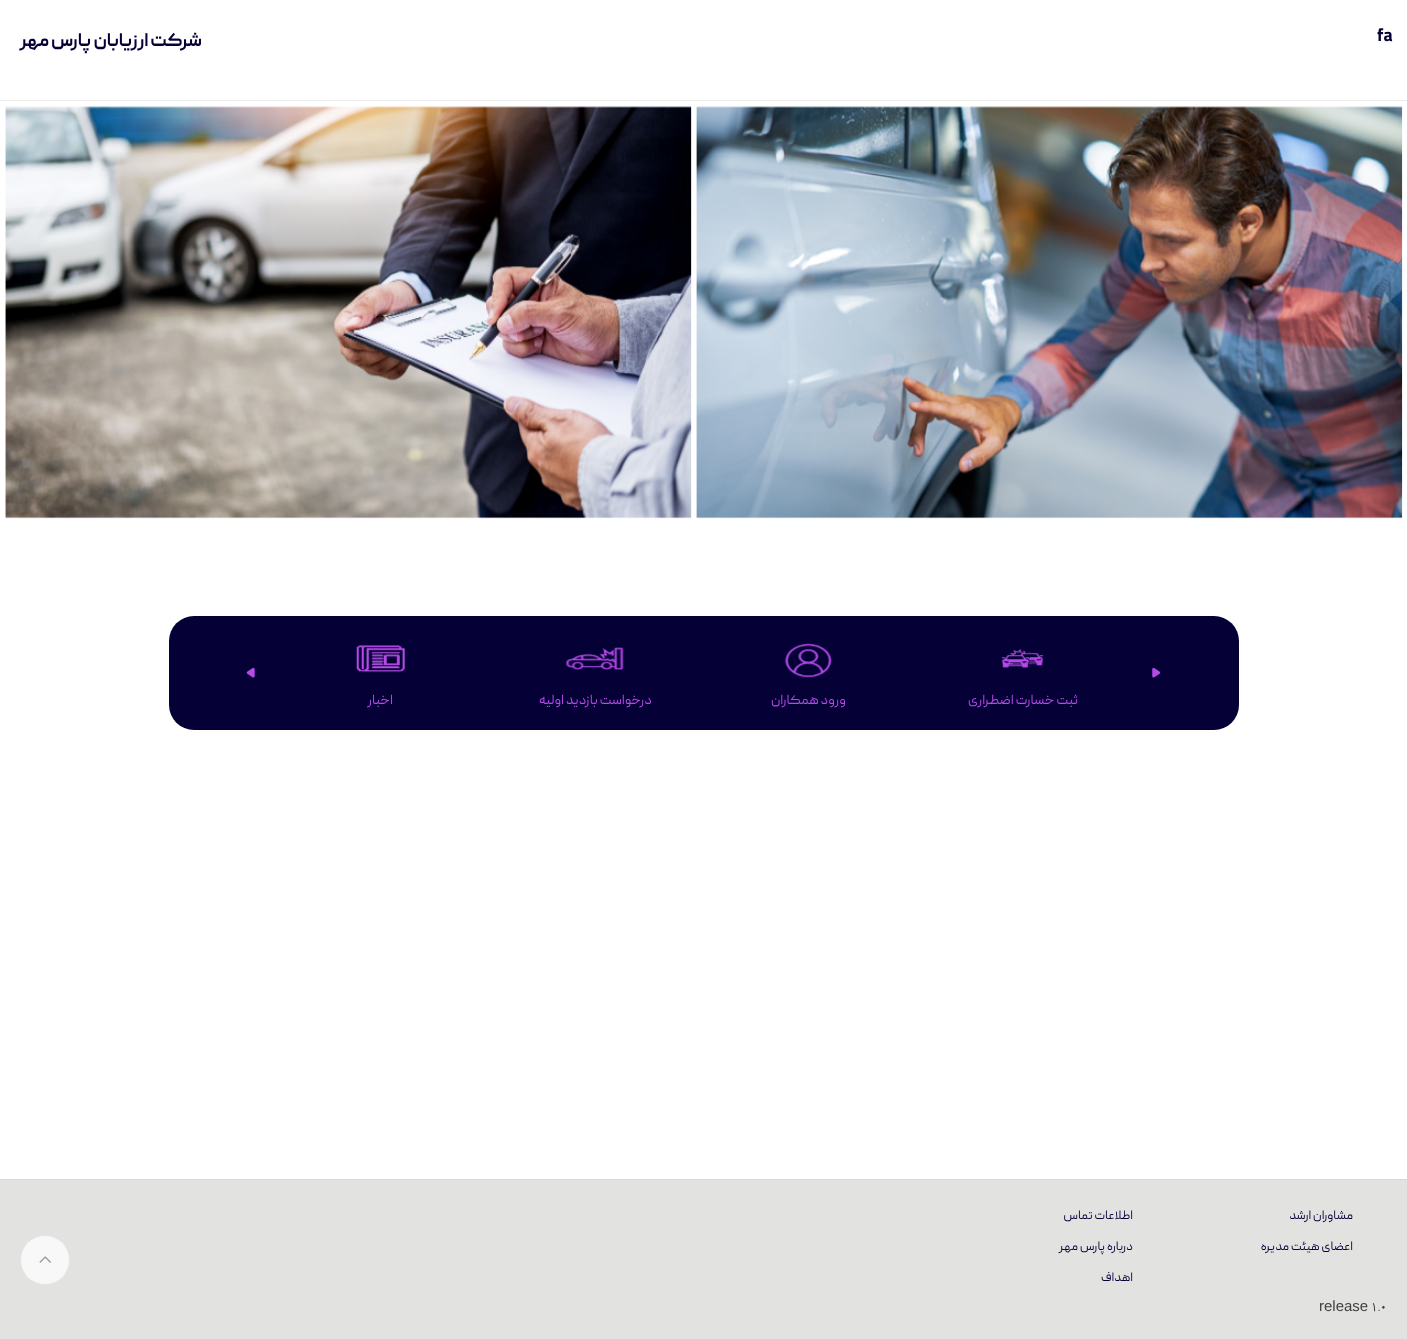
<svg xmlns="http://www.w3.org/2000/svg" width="1407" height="1339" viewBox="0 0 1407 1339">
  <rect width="100%" height="100%" fill="rgb(255,255,255)"/>
  <text x="1377" y="41" font-family="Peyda" font-size="18" font-weight="bold" fill="rgb(5,1,55)">fa</text>
  <text x="202" y="46" font-family="Peyda" font-size="18.75" font-weight="bold" direction="rtl" fill="rgb(5,1,55)">شرکت ارزیابان پارس مهر</text>
  <rect x="0" y="100" width="1407" height="1" fill="rgb(236,236,236)"/>
  <image x="5" y="106" width="1398" height="413" href="pic1.png"/>
  <rect x="169" y="616" width="1070" height="114" rx="25" fill="rgb(5,1,55)"/>
  <image x="1152" y="667" width="9" height="11" href="pic2.png"/>
  <image x="246" y="667" width="9" height="11" href="pic3.png"/>
  <image x="1001" y="649" width="43" height="20" href="pic4.png"/>
  <text x="1078" y="704" font-family="Peyda" font-size="14" direction="rtl" fill="rgb(183,73,235)">ثبت خسارت اضطراری</text>
  <image x="784" y="643" width="48" height="35" href="pic5.png"/>
  <text x="846" y="704" font-family="Peyda" font-size="14" direction="rtl" fill="rgb(183,73,235)">ورود همکاران</text>
  <image x="565" y="647" width="59" height="24" href="pic6.png"/>
  <text x="652" y="704" font-family="Peyda" font-size="14" direction="rtl" fill="rgb(183,73,235)">درخواست بازدید اولیه</text>
  <image x="356" y="645" width="49" height="28" href="pic7.png"/>
  <text x="393" y="704" font-family="Peyda" font-size="14" direction="rtl" fill="rgb(183,73,235)">اخبار</text>
  <rect x="0" y="1180" width="1407" height="159" fill="rgb(226,226,225)"/>
  <rect x="0" y="1179" width="1407" height="1" fill="rgb(215,215,214)"/>
  <g font-family="Peyda" font-size="12.75" direction="rtl" fill="rgb(5,1,55)">
    <text x="1353" y="1219">مشاوران ارشد</text>
    <text x="1353" y="1250">اعضای هیئت مدیره</text>
    <text x="1133" y="1219">اطلاعات تماس</text>
    <text x="1133" y="1250">درباره پارس مهر</text>
    <text x="1133" y="1281">اهداف</text>
  </g>
  <text x="1371" y="1311" font-family="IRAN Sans" font-size="15" fill="rgb(64,64,64)">1.0</text>
  <text x="1319" y="1311" font-family="Liberation Sans" font-size="15" fill="rgb(64,64,64)">release</text>
  <circle cx="45" cy="1260" r="25" fill="rgb(248,248,248)"/>
  <circle cx="45" cy="1260" r="24.5" fill="none" stroke="rgba(57,57,56,0.1)"/>
  <image x="39" y="1256" width="12" height="7" href="pic8.png"/>
</svg>
